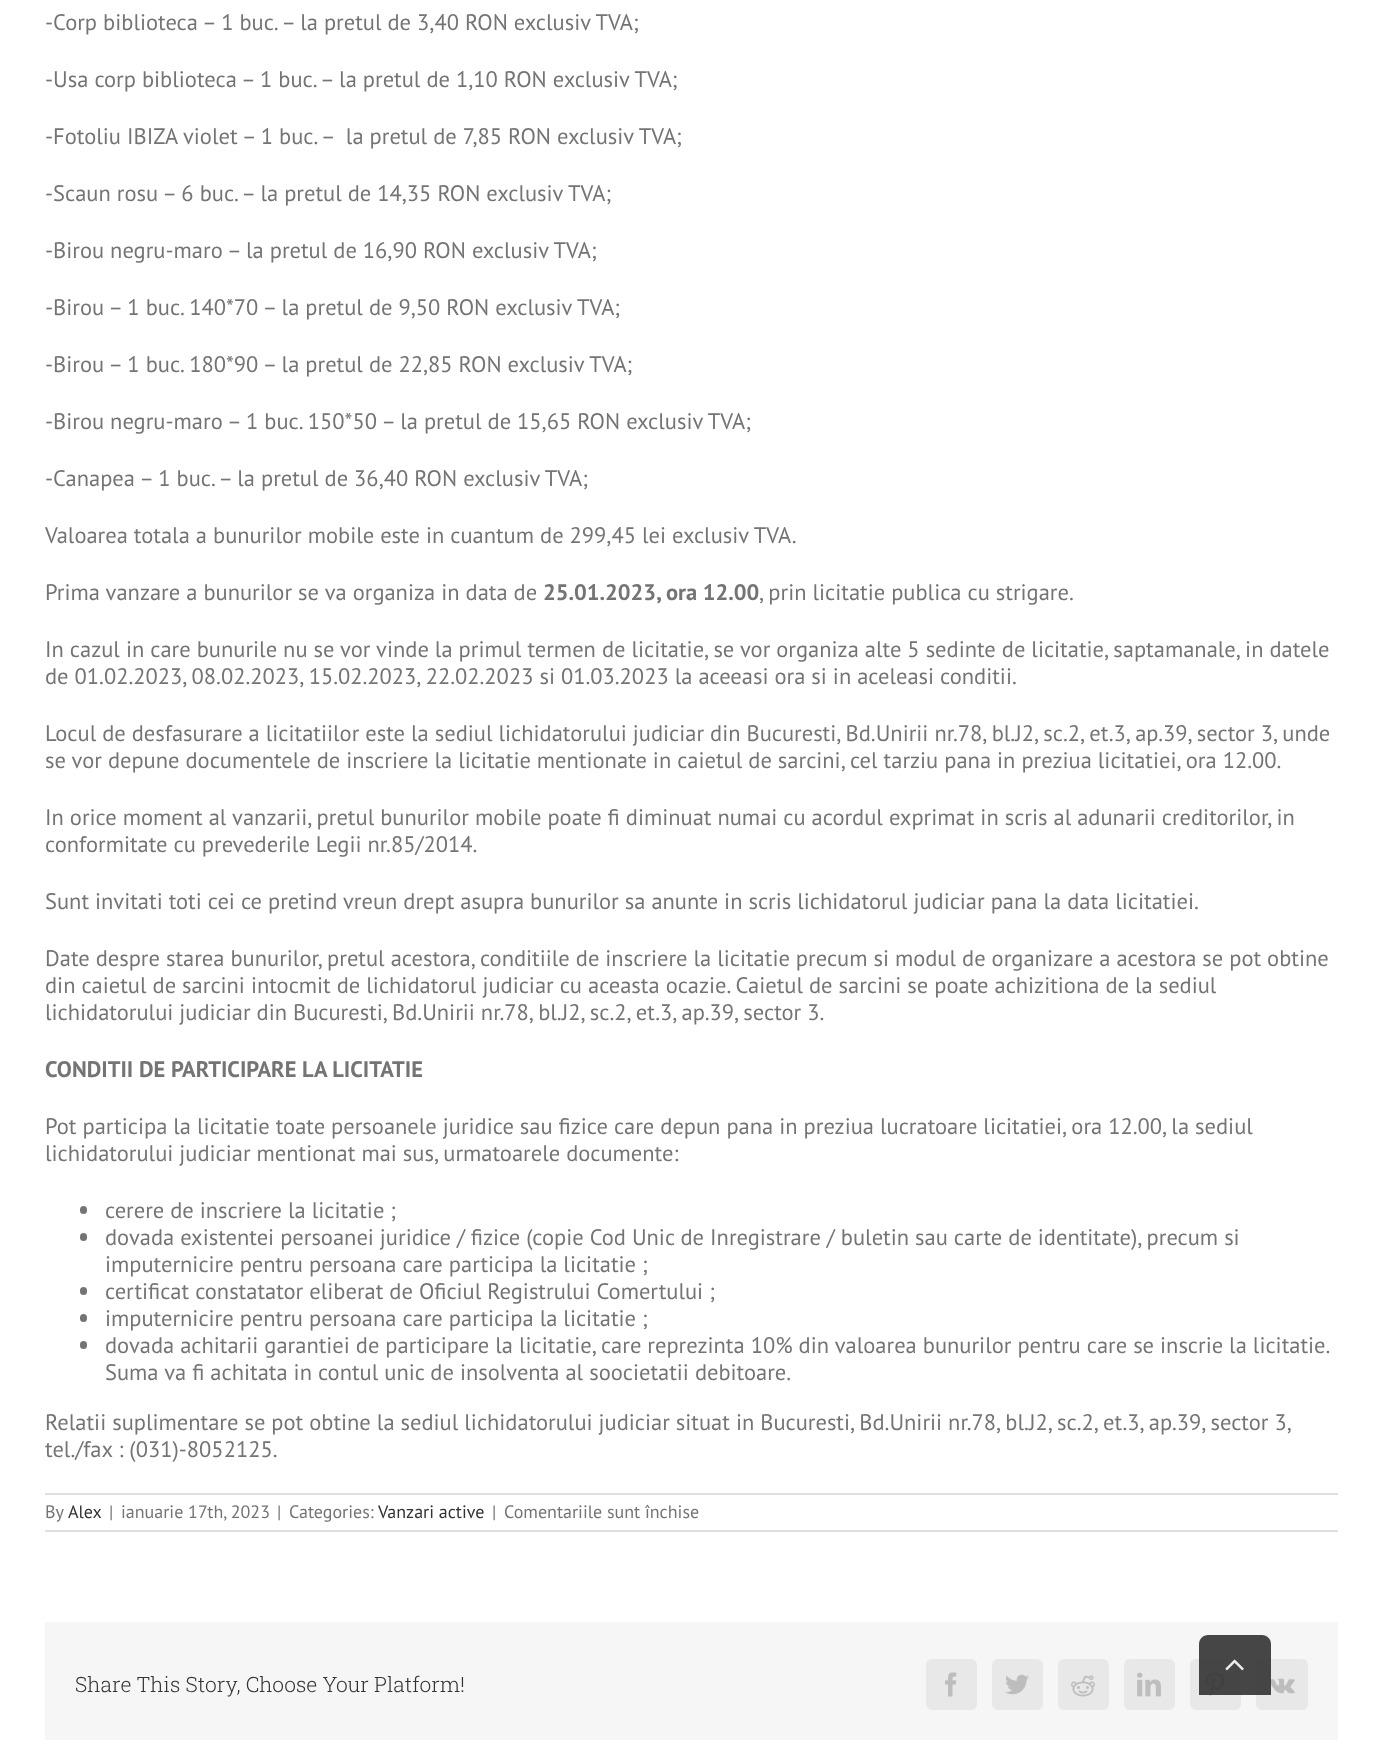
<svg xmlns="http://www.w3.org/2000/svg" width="1383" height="1740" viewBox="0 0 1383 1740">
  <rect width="100%" height="100%" fill="rgb(255,255,255)"/>
  <g font-family="PT Sans" font-size="22.5" fill="rgb(116,116,116)">
    <text x="45" y="30">-Corp biblioteca – 1 buc. – la pretul de 3,40 RON exclusiv TVA;</text>
    <text x="45" y="87">-Usa corp biblioteca – 1 buc. – la pretul de 1,10 RON exclusiv TVA;</text>
    <text x="45" y="144" xml:space="preserve">-Fotoliu IBIZA violet – 1 buc. –  la pretul de 7,85 RON exclusiv TVA;</text>
    <text x="45" y="201">-Scaun rosu – 6 buc. – la pretul de 14,35 RON exclusiv TVA;</text>
    <text x="45" y="258">-Birou negru-maro – la pretul de 16,90 RON exclusiv TVA;</text>
    <text x="45" y="315">-Birou – 1 buc. 140*70 – la pretul de 9,50 RON exclusiv TVA;</text>
    <text x="45" y="372">-Birou – 1 buc. 180*90 – la pretul de 22,85 RON exclusiv TVA;</text>
    <text x="45" y="429">-Birou negru-maro – 1 buc. 150*50 – la pretul de 15,65 RON exclusiv TVA;</text>
    <text x="45" y="486">-Canapea – 1 buc. – la pretul de 36,40 RON exclusiv TVA;</text>
    <text x="45" y="543">Valoarea totala a bunurilor mobile este in cuantum de 299,45 lei exclusiv TVA.</text>
    <text x="45" y="600">Prima vanzare a bunurilor se va organiza in data de</text>
  </g>
  <text x="543" y="600" font-family="PT Sans" font-size="22.5" font-weight="bold" fill="rgb(116,116,116)">25.01.2023, ora 12.00</text>
  <g font-family="PT Sans" font-size="22.5" fill="rgb(116,116,116)">
    <text x="759" y="600">, prin licitatie publica cu strigare.</text>
    <text>
      <tspan x="45" y="657">In cazul in care bunurile nu se vor vinde la primul termen de licitatie, se vor organiza alte 5 sedinte de licitatie, saptamanale, in datele</tspan>
      <tspan x="45" y="684">de 01.02.2023, 08.02.2023, 15.02.2023, 22.02.2023 si 01.03.2023 la aceeasi ora si in aceleasi conditii.</tspan>
    </text>
    <text>
      <tspan x="45" y="741">Locul de desfasurare a licitatiilor este la sediul lichidatorului judiciar din Bucuresti, Bd.Unirii nr.78, bl.J2, sc.2, et.3, ap.39, sector 3, unde</tspan>
      <tspan x="45" y="768">se vor depune documentele de inscriere la licitatie mentionate in caietul de sarcini, cel tarziu pana in preziua licitatiei, ora 12.00.</tspan>
    </text>
    <text>
      <tspan x="45" y="825">In orice moment al vanzarii, pretul bunurilor mobile poate fi diminuat numai cu acordul exprimat in scris al adunarii creditorilor, in</tspan>
      <tspan x="45" y="852">conformitate cu prevederile Legii nr.85/2014.</tspan>
    </text>
    <text x="45" y="909">Sunt invitati toti cei ce pretind vreun drept asupra bunurilor sa anunte in scris lichidatorul judiciar pana la data licitatiei.</text>
    <text>
      <tspan x="45" y="966">Date despre starea bunurilor, pretul acestora, conditiile de inscriere la licitatie precum si modul de organizare a acestora se pot obtine</tspan>
      <tspan x="45" y="993">din caietul de sarcini intocmit de lichidatorul judiciar cu aceasta ocazie. Caietul de sarcini se poate achizitiona de la sediul</tspan>
      <tspan x="45" y="1020">lichidatorului judiciar din Bucuresti, Bd.Unirii nr.78, bl.J2, sc.2, et.3, ap.39, sector 3.</tspan>
    </text>
  </g>
  <text x="45" y="1077" font-family="PT Sans" font-size="22.5" font-weight="bold" fill="rgb(116,116,116)">CONDITII DE PARTICIPARE LA LICITATIE</text>
  <g font-family="PT Sans" font-size="22.5" fill="rgb(116,116,116)">
    <text>
      <tspan x="45" y="1134">Pot participa la licitatie toate persoanele juridice sau fizice care depun pana in preziua lucratoare licitatiei, ora 12.00, la sediul</tspan>
      <tspan x="45" y="1161">lichidatorului judiciar mentionat mai sus, urmatoarele documente:</tspan>
    </text>
  </g>
  <rect x="80" y="1206" width="7" height="8" rx="3.5" fill="rgb(116,116,116)"/>
  <text x="105" y="1218" font-family="PT Sans" font-size="22.5" fill="rgb(116,116,116)">cerere de inscriere la licitatie ;</text>
  <rect x="80" y="1233" width="7" height="8" rx="3.5" fill="rgb(116,116,116)"/>
  <g font-family="PT Sans" font-size="22.5" fill="rgb(116,116,116)">
    <text>
      <tspan x="105" y="1245">dovada existentei persoanei juridice / fizice (copie Cod Unic de Inregistrare / buletin sau carte de identitate), precum si</tspan>
      <tspan x="105" y="1272">imputernicire pentru persoana care participa la licitatie ;</tspan>
    </text>
  </g>
  <rect x="80" y="1287" width="7" height="8" rx="3.5" fill="rgb(116,116,116)"/>
  <text x="105" y="1299" font-family="PT Sans" font-size="22.5" fill="rgb(116,116,116)">certificat constatator eliberat de Oficiul Registrului Comertului ;</text>
  <rect x="80" y="1314" width="7" height="8" rx="3.5" fill="rgb(116,116,116)"/>
  <text x="105" y="1326" font-family="PT Sans" font-size="22.5" fill="rgb(116,116,116)">imputernicire pentru persoana care participa la licitatie ;</text>
  <rect x="80" y="1341" width="7" height="8" rx="3.5" fill="rgb(116,116,116)"/>
  <g font-family="PT Sans" font-size="22.5" fill="rgb(116,116,116)">
    <text>
      <tspan x="105" y="1353">dovada achitarii garantiei de participare la licitatie, care reprezinta 10% din valoarea bunurilor pentru care se inscrie la licitatie.</tspan>
      <tspan x="105" y="1380">Suma va fi achitata in contul unic de insolventa al soocietatii debitoare.</tspan>
    </text>
    <text>
      <tspan x="45" y="1430">Relatii suplimentare se pot obtine la sediul lichidatorului judiciar situat in Bucuresti, Bd.Unirii nr.78, bl.J2, sc.2, et.3, ap.39, sector 3,</tspan>
      <tspan x="45" y="1457">tel./fax : (031)-8052125.</tspan>
    </text>
  </g>
  <rect x="45" y="1493" width="1293" height="2" fill="rgb(224,222,222)"/>
  <rect x="45" y="1530" width="1293" height="2" fill="rgb(224,222,222)"/>
  <text x="45" y="1518" font-family="PT Sans" font-size="18" fill="rgb(116,116,116)">By</text>
  <text x="68" y="1518" font-family="PT Sans" font-size="18" fill="rgb(51,51,51)">Alex</text>
  <g font-family="PT Sans" font-size="18" fill="rgb(116,116,116)">
    <text x="109" y="1518">|</text>
    <text x="121" y="1518">ianuarie 17th, 2023</text>
    <text x="277" y="1518">|</text>
    <text x="289" y="1518">Categories:</text>
  </g>
  <text x="378" y="1518" font-family="PT Sans" font-size="18" fill="rgb(51,51,51)">Vanzari active</text>
  <g font-family="PT Sans" font-size="18" fill="rgb(116,116,116)">
    <text x="492" y="1518">|</text>
    <text x="504" y="1518">Comentariile sunt închise</text>
  </g>
  <rect x="45" y="1622" width="1293" height="118" fill="rgb(246,246,246)"/>
  <text x="75" y="1692" font-family="Roboto Slab" font-size="21" font-weight="300" fill="rgb(51,51,51)">Share This Story, Choose Your Platform!</text>
  <rect x="927" y="1660" width="49" height="49" rx="5" fill="rgb(232,232,232)" stroke="rgb(232,232,232)" stroke-width="2"/>
  <image x="945" y="1672" width="12" height="25" href="pic1.png"/>
  <rect x="993" y="1660" width="49" height="49" rx="5" fill="rgb(232,232,232)" stroke="rgb(232,232,232)" stroke-width="2"/>
  <image x="1005" y="1674" width="24" height="21" href="pic2.png"/>
  <rect x="1059" y="1660" width="49" height="49" rx="5" fill="rgb(232,232,232)" stroke="rgb(232,232,232)" stroke-width="2"/>
  <image x="1071" y="1675" width="24" height="22" href="pic3.png"/>
  <rect x="1125" y="1660" width="49" height="49" rx="5" fill="rgb(232,232,232)" stroke="rgb(232,232,232)" stroke-width="2"/>
  <image x="1137" y="1672" width="24" height="25" href="pic4.png"/>
  <rect x="1191" y="1660" width="49" height="49" rx="5" fill="rgb(232,232,232)" stroke="rgb(232,232,232)" stroke-width="2"/>
  <image x="1205" y="1672" width="20" height="24" href="pic5.png"/>
  <rect x="1257" y="1660" width="50" height="49" rx="5" fill="rgb(232,232,232)" stroke="rgb(232,232,232)" stroke-width="2"/>
  <image x="1269" y="1678" width="26" height="16" href="pic6.png"/>
  <path d="M1208 1635H1262C1267 1635 1271 1639 1271 1644V1695H1199V1644C1199 1639 1203 1635 1208 1635Z" fill="rgba(51,51,51,0.9)"/>
  <image x="1225" y="1659" width="19" height="12" href="pic7.png"/>
</svg>
